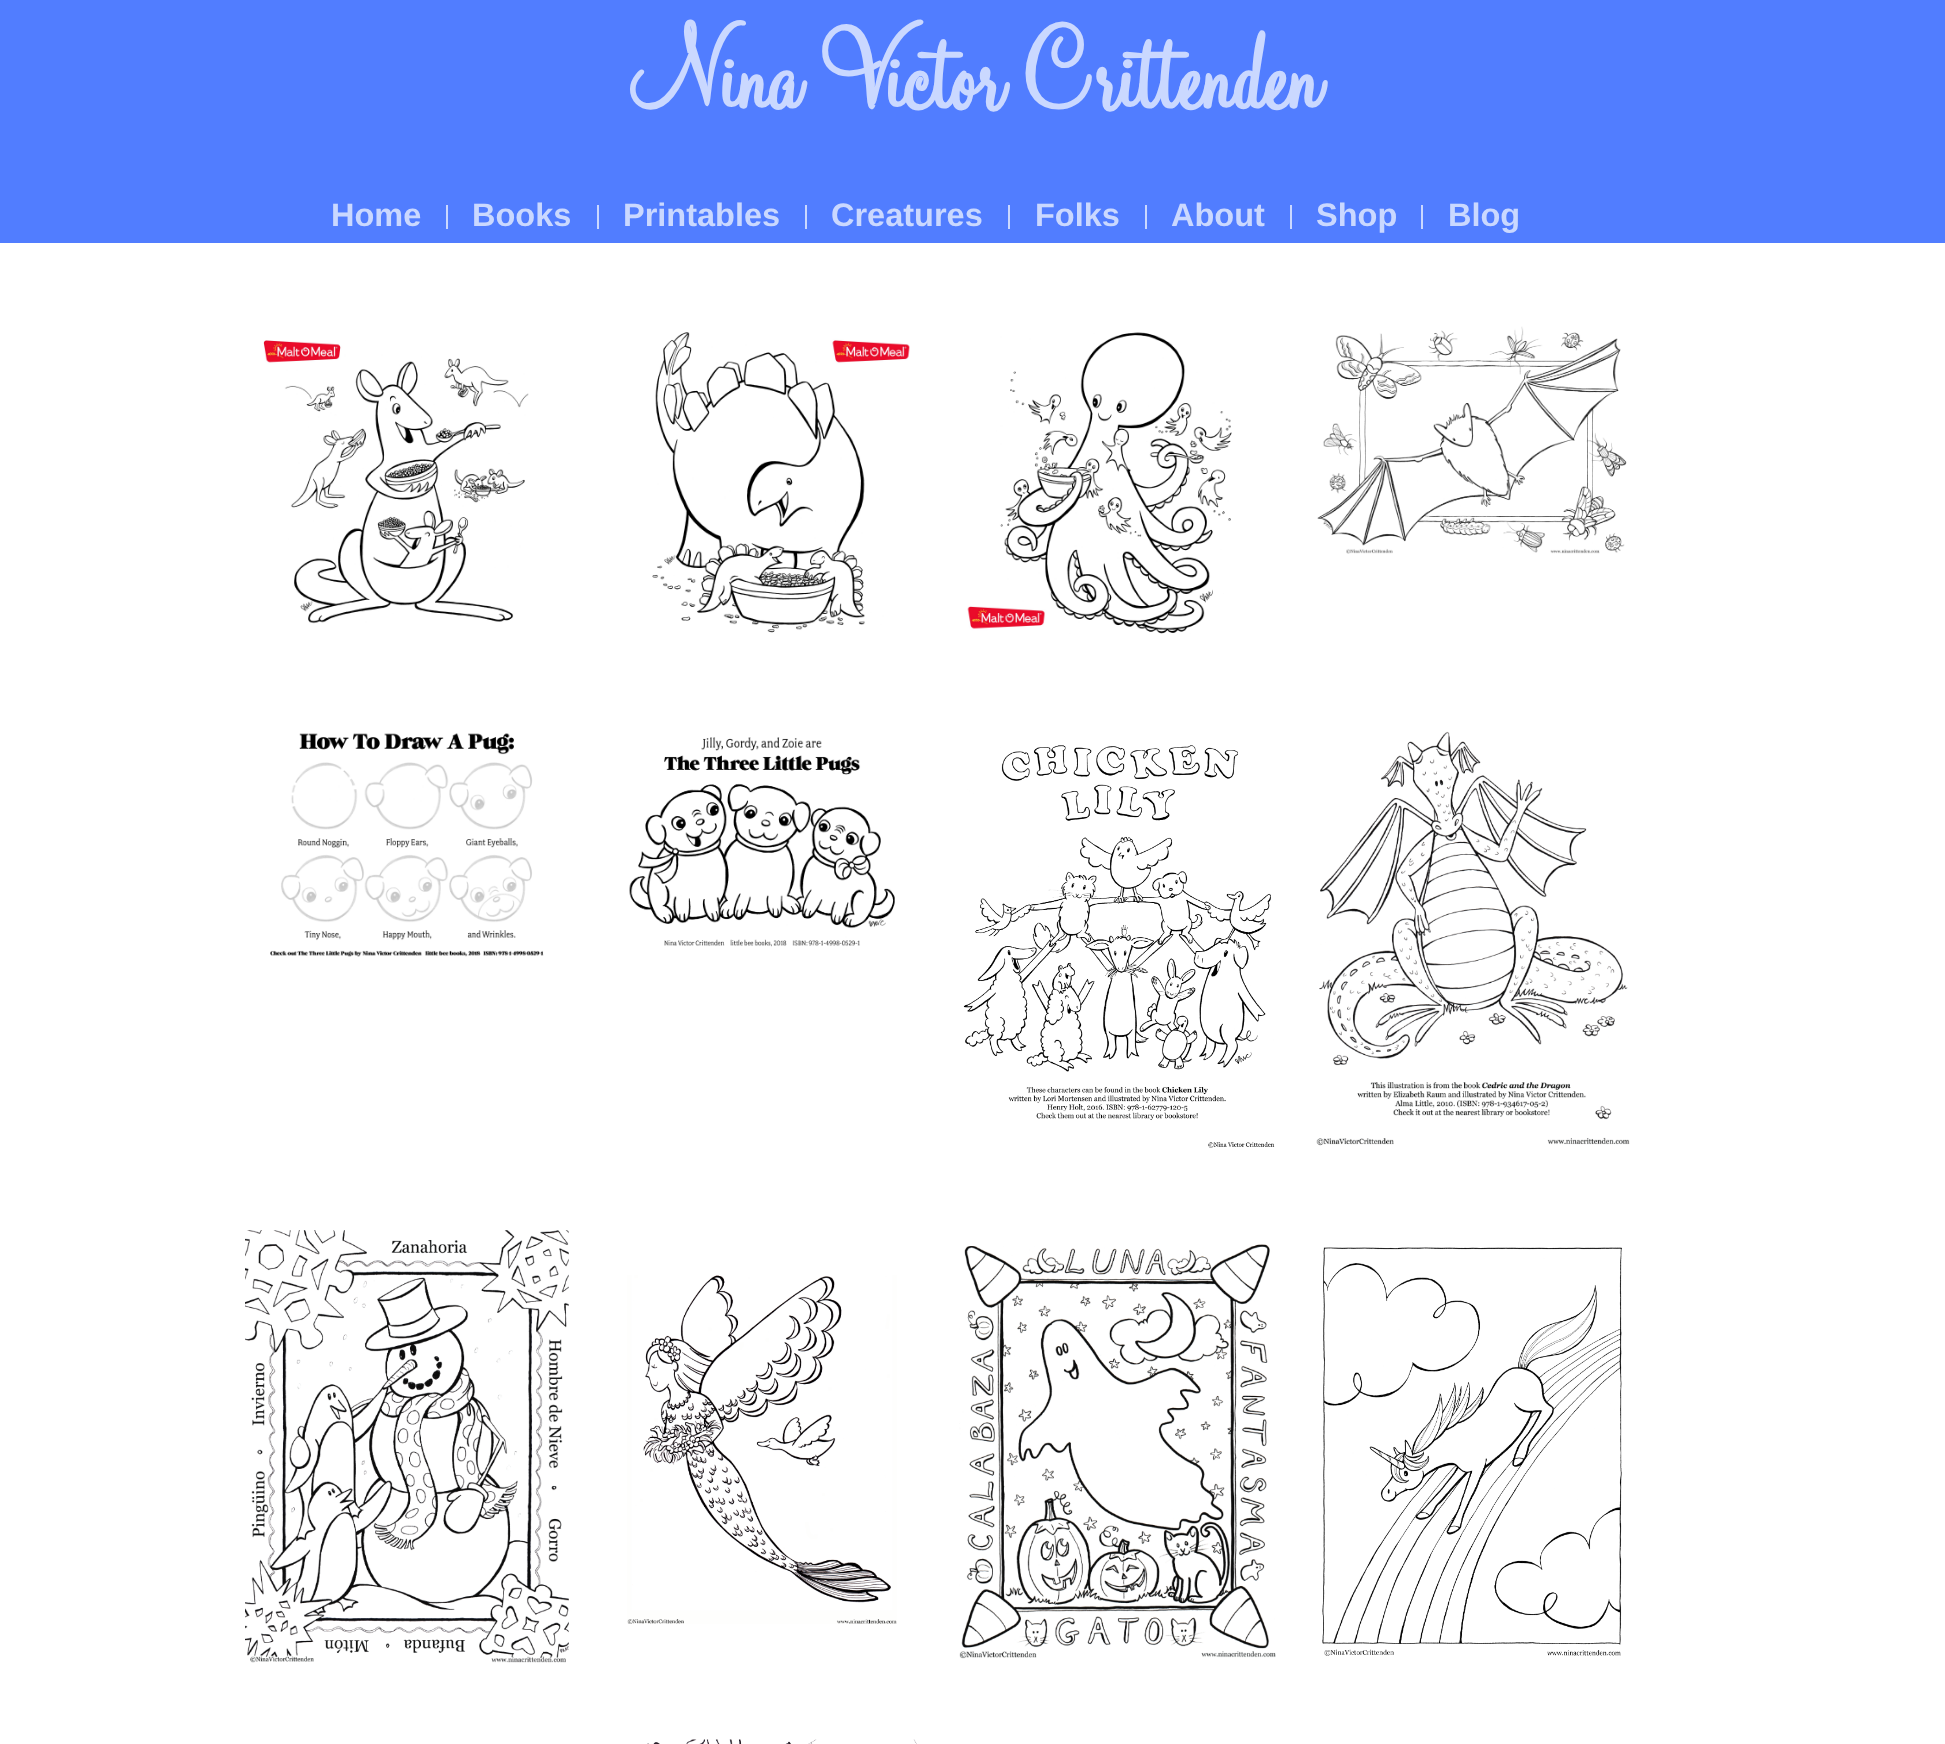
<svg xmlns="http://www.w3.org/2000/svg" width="1945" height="1744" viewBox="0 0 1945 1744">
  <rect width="100%" height="100%" fill="rgb(255,255,255)"/>
  <rect x="0" y="0" width="1945" height="243" fill="rgb(81,125,255)"/>
  <text x="629" y="107" font-family="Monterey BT" font-size="121.5" font-weight="bold" fill="rgb(202,216,255)">Nina Victor Crittenden</text>
  <rect x="446" y="205" width="2" height="24" fill="rgb(202,216,255)"/>
  <text x="331" y="226" font-family="Liberation Sans" font-size="32.5" font-weight="bold" fill="rgb(202,216,255)">Home</text>
  <rect x="597" y="205" width="2" height="24" fill="rgb(202,216,255)"/>
  <text x="472" y="226" font-family="Liberation Sans" font-size="32.5" font-weight="bold" fill="rgb(202,216,255)">Books</text>
  <rect x="805" y="205" width="2" height="24" fill="rgb(202,216,255)"/>
  <text x="623" y="226" font-family="Liberation Sans" font-size="32.5" font-weight="bold" fill="rgb(202,216,255)">Printables</text>
  <rect x="1008" y="205" width="2" height="24" fill="rgb(202,216,255)"/>
  <text x="831" y="226" font-family="Liberation Sans" font-size="32.5" font-weight="bold" fill="rgb(202,216,255)">Creatures</text>
  <rect x="1145" y="205" width="2" height="24" fill="rgb(202,216,255)"/>
  <text x="1035" y="226" font-family="Liberation Sans" font-size="32.5" font-weight="bold" fill="rgb(202,216,255)">Folks</text>
  <rect x="1290" y="205" width="2" height="24" fill="rgb(202,216,255)"/>
  <text x="1171" y="226" font-family="Liberation Sans" font-size="32.5" font-weight="bold" fill="rgb(202,216,255)">About</text>
  <rect x="1421" y="205" width="2" height="24" fill="rgb(202,216,255)"/>
  <g font-family="Liberation Sans" font-size="32.5" font-weight="bold" fill="rgb(202,216,255)">
    <text x="1316" y="226">Shop</text>
    <text x="1448" y="226">Blog</text>
  </g>
  <image x="263" y="340" width="266" height="284" href="pic1.png"/>
  <image x="652" y="332" width="258" height="301" href="pic2.png"/>
  <image x="967" y="332" width="265" height="302" href="pic3.png"/>
  <image x="1317" y="326" width="310" height="228" href="pic4.png"/>
  <image x="270" y="733" width="274" height="224" href="pic5.png"/>
  <image x="629" y="737" width="266" height="210" href="pic6.png"/>
  <image x="963" y="745" width="312" height="403" href="pic7.png"/>
  <image x="1316" y="731" width="314" height="415" href="pic8.png"/>
  <image x="245" y="1230" width="324" height="433" href="pic9.png"/>
  <image x="627" y="1275" width="270" height="349" href="pic10.png"/>
  <image x="959" y="1244" width="317" height="415" href="pic11.png"/>
  <image x="1322" y="1247" width="300" height="409" href="pic12.png"/>
  <image x="647" y="1739" width="270" height="5" href="pic13.png"/>
</svg>
